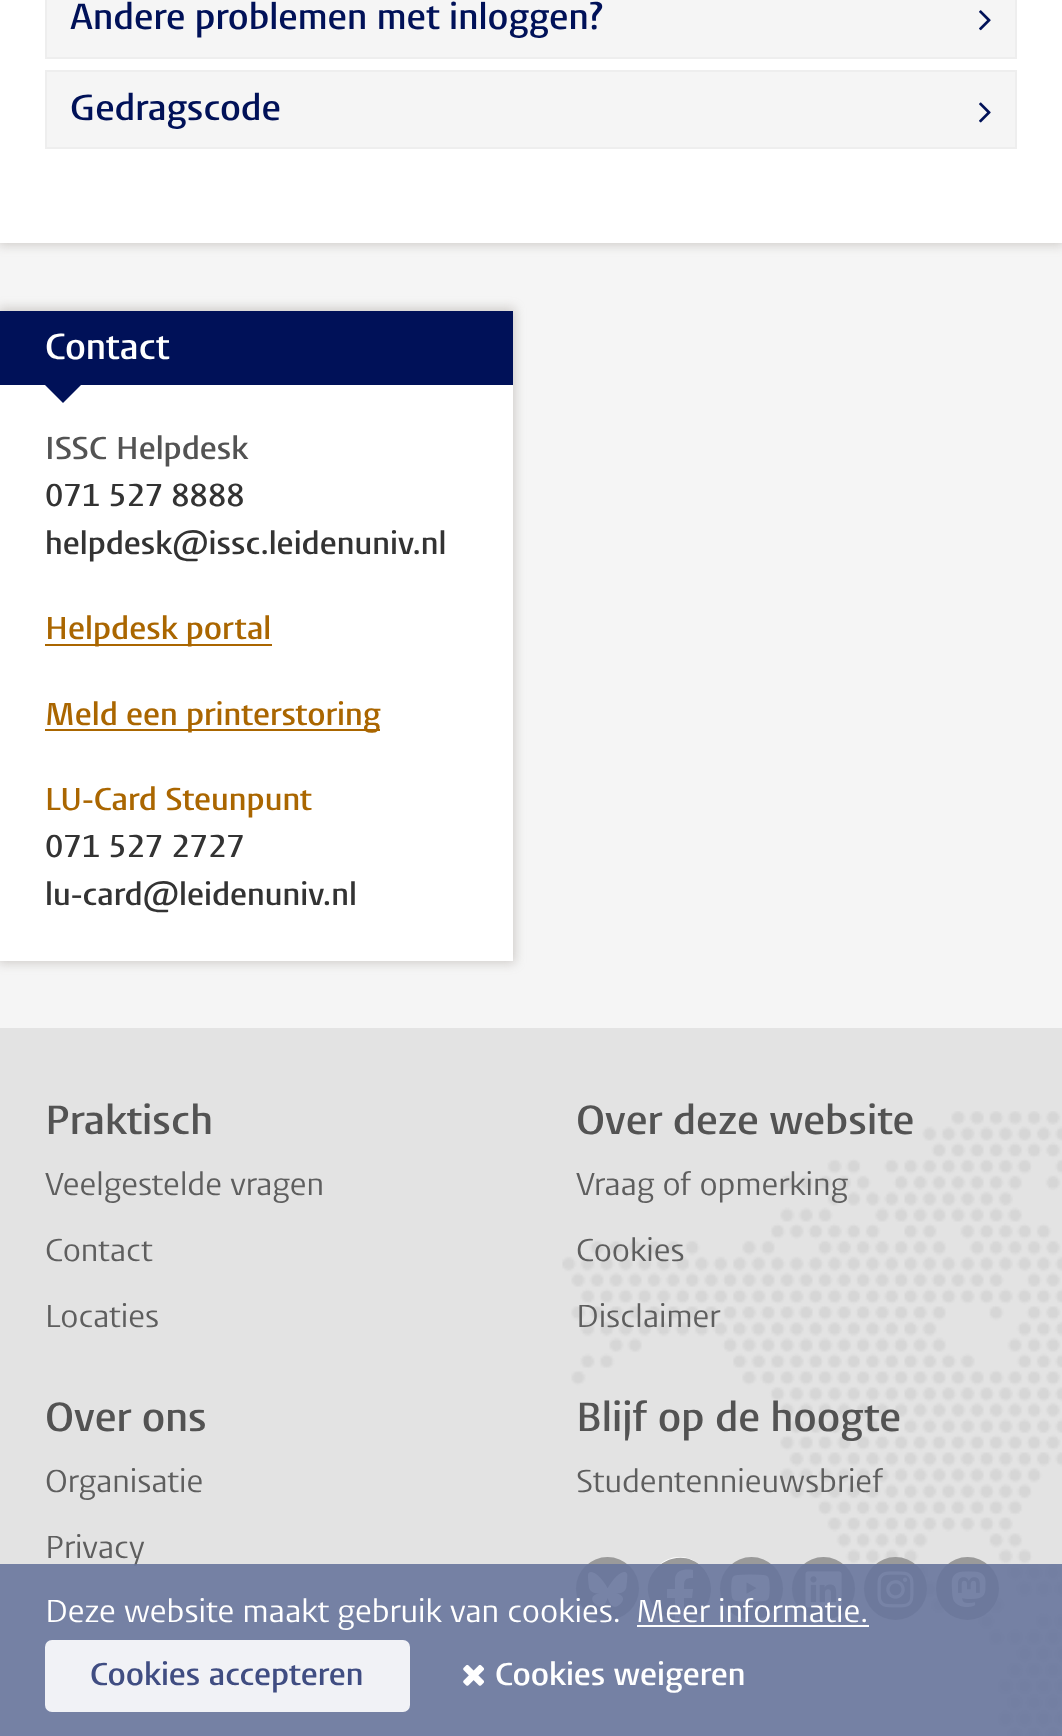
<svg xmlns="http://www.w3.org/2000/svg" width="1062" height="1736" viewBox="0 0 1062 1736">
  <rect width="100%" height="100%" fill="rgb(245,245,245)"/>
  <rect x="-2" y="-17" width="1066" height="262" fill="rgba(120,110,100,0.3)" filter="blur(5.5px)"/>
  <rect x="0" y="0" width="1062" height="243" fill="rgb(255,255,255)"/>
  <rect x="46" y="-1" width="970" height="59" fill="rgb(245,245,245)" stroke="rgb(238,238,238)" stroke-width="2"/>
  <text x="70" y="29" font-family="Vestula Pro" font-size="36" font-weight="600" fill="rgb(0,17,88)">Andere problemen met inloggen?</text>
  <image x="979" y="10" width="12" height="21" href="pic1.png"/>
  <rect x="46" y="71" width="970" height="77" fill="rgb(245,245,245)" stroke="rgb(238,238,238)" stroke-width="2"/>
  <text x="70" y="120" font-family="Vestula Pro" font-size="36" font-weight="600" fill="rgb(0,17,88)">Gedragscode</text>
  <image x="979" y="102" width="12" height="21" href="pic2.png"/>
  <rect x="-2" y="308" width="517" height="655" fill="rgba(120,110,100,0.3)" filter="blur(5.5px)"/>
  <rect x="0" y="385" width="513" height="576" fill="rgb(255,255,255)"/>
  <rect x="0" y="311" width="513" height="74" fill="rgb(0,17,88)"/>
  <text x="45" y="359" font-family="Vestula Pro" font-size="36" font-weight="600" fill="rgb(255,255,255)">Contact</text>
  <path d="M45 385H81L63 403Z" fill="rgb(0,17,88)"/>
  <text x="45" y="459" font-family="Vestula Pro" font-size="31.5" font-weight="600" fill="rgb(83,83,83)">ISSC Helpdesk</text>
  <g font-family="Vestula Pro" font-size="31.5" font-weight="600" fill="rgb(51,51,51)">
    <text>
      <tspan x="45" y="506">071 527 8888</tspan>
      <tspan x="45" y="554">helpdesk@issc.leidenuniv.nl</tspan>
    </text>
  </g>
  <rect x="45" y="644" width="227" height="2" fill="rgb(170,102,0)"/>
  <text x="45" y="639" font-family="Vestula Pro" font-size="31.5" font-weight="600" fill="rgb(170,102,0)">Helpdesk portal</text>
  <rect x="45" y="729" width="335" height="2" fill="rgb(170,102,0)"/>
  <g font-family="Vestula Pro" font-size="31.5" font-weight="600" fill="rgb(170,102,0)">
    <text x="45" y="725">Meld een printerstoring</text>
    <text x="45" y="810">LU-Card Steunpunt</text>
  </g>
  <g font-family="Vestula Pro" font-size="31.5" font-weight="600" fill="rgb(51,51,51)">
    <text>
      <tspan x="45" y="857">071 527 2727</tspan>
      <tspan x="45" y="905">lu-card@leidenuniv.nl</tspan>
    </text>
  </g>
  <rect x="0" y="1028" width="1062" height="708" fill="rgb(227,227,227)"/>
  <image x="562" y="1111" width="500" height="625" href="pic3.png"/>
  <text x="45" y="1134" font-family="Vestula Pro" font-size="40.5" font-weight="600" fill="rgb(83,83,83)">Praktisch</text>
  <g font-family="Vestula Pro" font-size="31.5" fill="rgb(94,94,94)">
    <text x="45" y="1195">Veelgestelde vragen</text>
    <text x="45" y="1261">Contact</text>
    <text x="45" y="1327">Locaties</text>
  </g>
  <text x="576" y="1134" font-family="Vestula Pro" font-size="40.5" font-weight="600" fill="rgb(83,83,83)">Over deze website</text>
  <g font-family="Vestula Pro" font-size="31.5" fill="rgb(94,94,94)">
    <text x="576" y="1195">Vraag of opmerking</text>
    <text x="576" y="1261">Cookies</text>
    <text x="576" y="1327">Disclaimer</text>
  </g>
  <text x="45" y="1431" font-family="Vestula Pro" font-size="40.5" font-weight="600" fill="rgb(83,83,83)">Over ons</text>
  <g font-family="Vestula Pro" font-size="31.5" fill="rgb(94,94,94)">
    <text x="45" y="1492">Organisatie</text>
    <text x="45" y="1558">Privacy</text>
  </g>
  <text x="576" y="1431" font-family="Vestula Pro" font-size="40.5" font-weight="600" fill="rgb(83,83,83)">Blijf op de hoogte</text>
  <text x="576" y="1492" font-family="Vestula Pro" font-size="31.5" fill="rgb(94,94,94)">Studentennieuwsbrief</text>
  <circle cx="607.5" cy="1588.5" r="31.5" fill="rgb(154,154,154)"/>
  <image x="588" y="1572" width="40" height="35" href="pic4.png"/>
  <circle cx="679.5" cy="1588.5" r="31.5" fill="rgb(255,255,255)"/>
  <path d="M711 1589C711 1581 708 1574 703 1568C679 1542 636 1570 651 1602C655 1611 664 1618 675 1620V1598H667V1589H675V1579C676 1569 686 1569 693 1570V1578C684 1578 684 1580 684 1589H693L692 1598H684V1620C700 1618 711 1604 711 1589Z" fill="rgb(154,154,154)"/>
  <circle cx="751.5" cy="1588.5" r="31.5" fill="rgb(154,154,154)"/>
  <image x="731" y="1574" width="39" height="28" href="pic5.png"/>
  <circle cx="823.5" cy="1588.5" r="31.5" fill="rgb(154,154,154)"/>
  <image x="805" y="1571" width="37" height="37" href="pic6.png"/>
  <circle cx="895.5" cy="1588.5" r="31.5" fill="rgb(154,154,154)"/>
  <image x="877" y="1571" width="37" height="37" href="pic7.png"/>
  <circle cx="967.5" cy="1588.5" r="31.5" fill="rgb(154,154,154)"/>
  <image x="951" y="1571" width="35" height="36" href="pic8.png"/>
  <rect x="0" y="1564" width="1062" height="172" fill="rgba(104,118,156,0.9)"/>
  <g font-family="Vestula Pro" font-size="31.5" fill="rgb(255,255,255)">
    <text x="45" y="1622">Deze website maakt gebruik van cookies.</text>
    <text x="636" y="1622">Meer informatie.</text>
  </g>
  <rect x="637" y="1625" width="232" height="2" fill="rgb(255,255,255)"/>
  <rect x="45" y="1640" width="365" height="72" rx="7" fill="rgb(241,242,246)"/>
  <text x="90" y="1685" font-family="Vestula Pro" font-size="31.5" font-weight="600" fill="rgb(64,77,130)">Cookies accepteren</text>
  <image x="463" y="1664" width="21" height="22" href="pic9.png"/>
  <text x="495" y="1685" font-family="Vestula Pro" font-size="31.5" font-weight="600" fill="rgb(255,255,255)">Cookies weigeren</text>
</svg>
